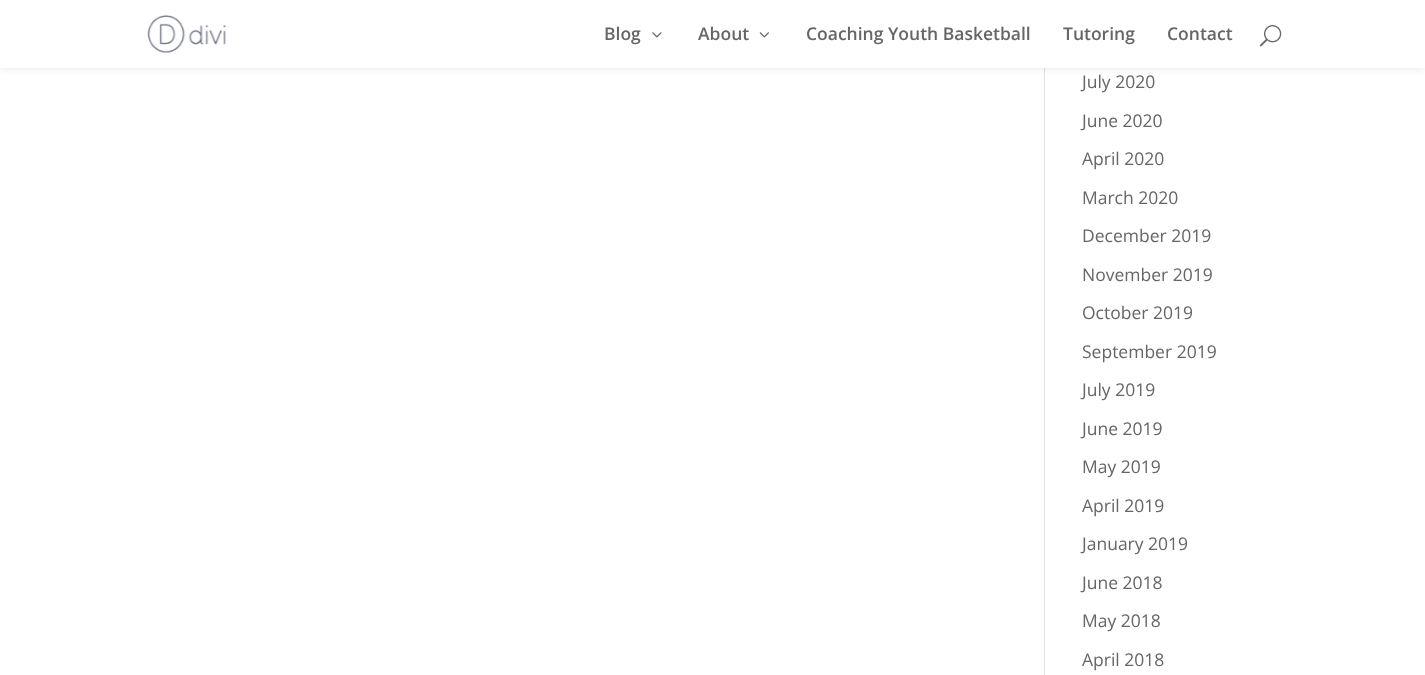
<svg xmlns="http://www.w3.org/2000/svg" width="1425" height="675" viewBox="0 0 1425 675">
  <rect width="100%" height="100%" fill="rgb(255,255,255)"/>
  <rect x="1044" y="68" width="1" height="607" fill="rgb(226,226,226)"/>
  <rect x="0" y="0" width="1425" height="68" fill="rgba(0,0,0,0.1)" filter="blur(4.5px)"/>
  <rect x="0" y="0" width="1425" height="68" fill="rgb(255,255,255)"/>
  <image x="147" y="15" width="80" height="38" href="pic1.png"/>
  <text x="604" y="40" font-family="Open Sans" font-size="17.5" font-weight="600" fill="rgb(102,102,102)">Blog</text>
  <image x="652" y="32" width="10" height="6" href="pic2.png"/>
  <text x="698" y="40" font-family="Open Sans" font-size="17.5" font-weight="600" fill="rgb(102,102,102)">About</text>
  <image x="759" y="32" width="10" height="6" href="pic3.png"/>
  <g font-family="Open Sans" font-size="17.5" font-weight="600" fill="rgb(102,102,102)">
    <text x="806" y="40">Coaching Youth Basketball</text>
    <text x="1063" y="40">Tutoring</text>
    <text x="1167" y="40">Contact</text>
  </g>
  <image x="1260" y="25" width="22" height="22" href="pic4.png"/>
  <g font-family="Open Sans" font-size="17.5" fill="rgb(102,102,102)">
    <text x="1082" y="88">July 2020</text>
    <text x="1082" y="127">June 2020</text>
    <text x="1082" y="165">April 2020</text>
    <text x="1082" y="204">March 2020</text>
    <text x="1082" y="242">December 2019</text>
    <text x="1082" y="281">November 2019</text>
    <text x="1082" y="319">October 2019</text>
    <text x="1082" y="358">September 2019</text>
    <text x="1082" y="396">July 2019</text>
    <text x="1082" y="435">June 2019</text>
    <text x="1082" y="473">May 2019</text>
    <text x="1082" y="512">April 2019</text>
    <text x="1082" y="550">January 2019</text>
    <text x="1082" y="589">June 2018</text>
    <text x="1082" y="627">May 2018</text>
    <text x="1082" y="666">April 2018</text>
  </g>
</svg>
